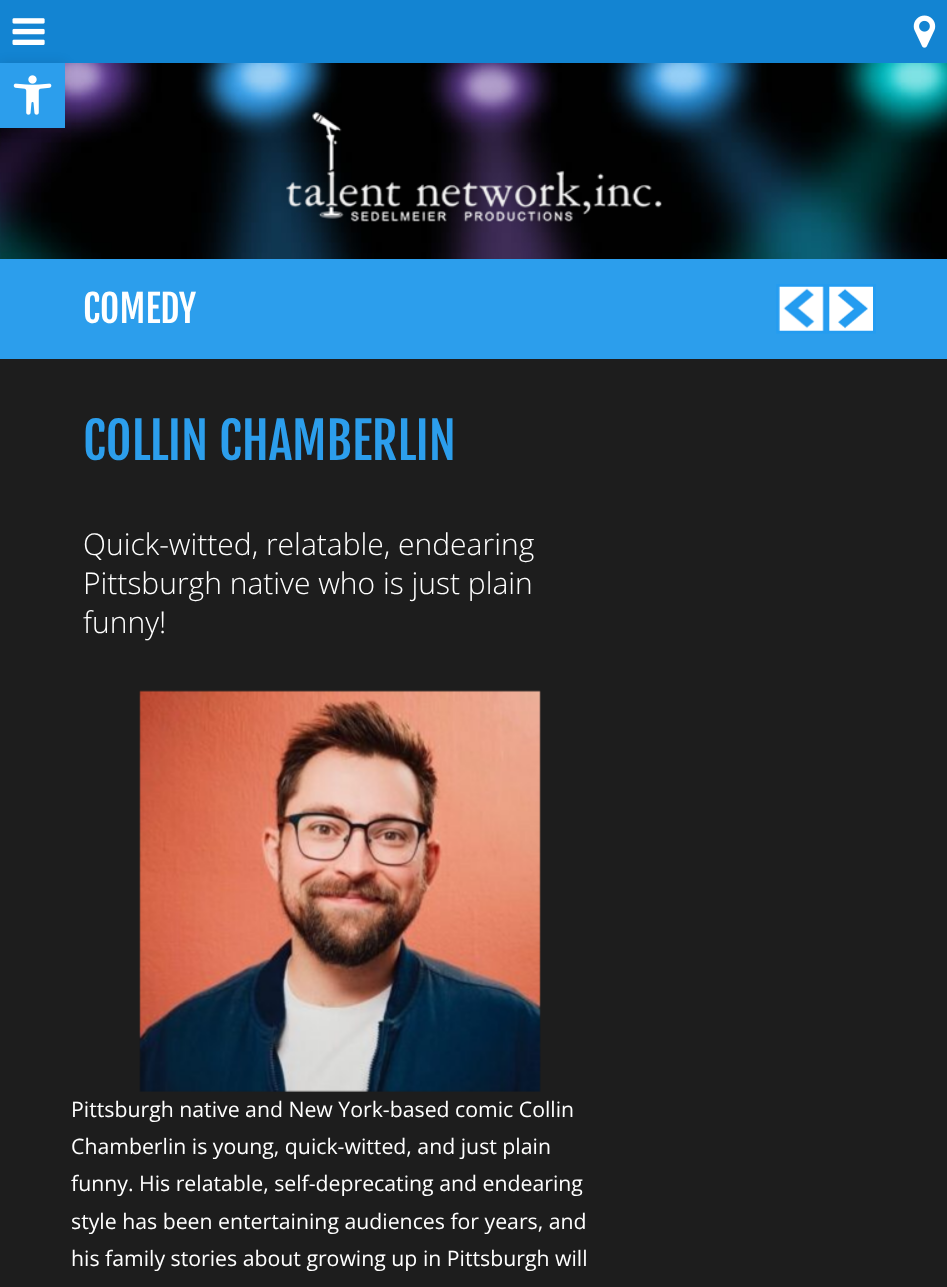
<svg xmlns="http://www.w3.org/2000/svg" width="947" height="1287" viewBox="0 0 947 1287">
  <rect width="100%" height="100%" fill="rgb(19,132,210)"/>
  <image x="12" y="18" width="33" height="27" href="pic2.png"/>
  <image x="0" y="63" width="947" height="196" href="pic4.png"/>
  <rect x="0" y="63" width="65" height="65" fill="rgba(0,0,0,0.1)" filter="blur(6px)"/>
  <rect x="0" y="63" width="65" height="65" fill="rgb(44,158,236)"/>
  <image x="13" y="75" width="39" height="40" href="pic1.png"/>
  <image x="913" y="15" width="23" height="33" href="pic3.png"/>
  <image x="286" y="112" width="376" height="110" href="pic5.png"/>
  <rect x="0" y="259" width="947" height="100" fill="rgb(44,158,236)"/>
  <text x="83" y="323" font-family="Fjalla One" font-size="37.5" fill="rgb(255,255,255)">COMEDY</text>
  <image x="776" y="284" width="50" height="50" href="pic6.png"/>
  <image x="826" y="284" width="50" height="50" href="pic7.png"/>
  <rect x="0" y="359" width="947" height="928" fill="rgb(29,29,29)"/>
  <text x="83" y="460" font-family="Fjalla One" font-size="50" fill="rgb(44,158,236)">COLLIN CHAMBERLIN</text>
  <g font-family="Open Sans" font-size="30" font-weight="300" fill="rgb(255,255,255)">
    <text>
      <tspan x="83" y="555">Quick-witted, relatable, endearing</tspan>
      <tspan x="83" y="594">Pittsburgh native who is just plain</tspan>
      <tspan x="83" y="633">funny!</tspan>
    </text>
  </g>
  <image x="139" y="690" width="402" height="402" href="pic8.png"/>
  <g font-family="Open Sans" font-size="21.25" fill="rgb(255,255,255)">
    <text>
      <tspan x="71" y="1117">Pittsburgh native and New York-based comic Collin</tspan>
      <tspan x="71" y="1154">Chamberlin is young, quick-witted, and just plain</tspan>
      <tspan x="71" y="1191">funny. His relatable, self-deprecating and endearing</tspan>
      <tspan x="71" y="1229">style has been entertaining audiences for years, and</tspan>
      <tspan x="71" y="1266">his family stories about growing up in Pittsburgh will</tspan>
    </text>
  </g>
</svg>
